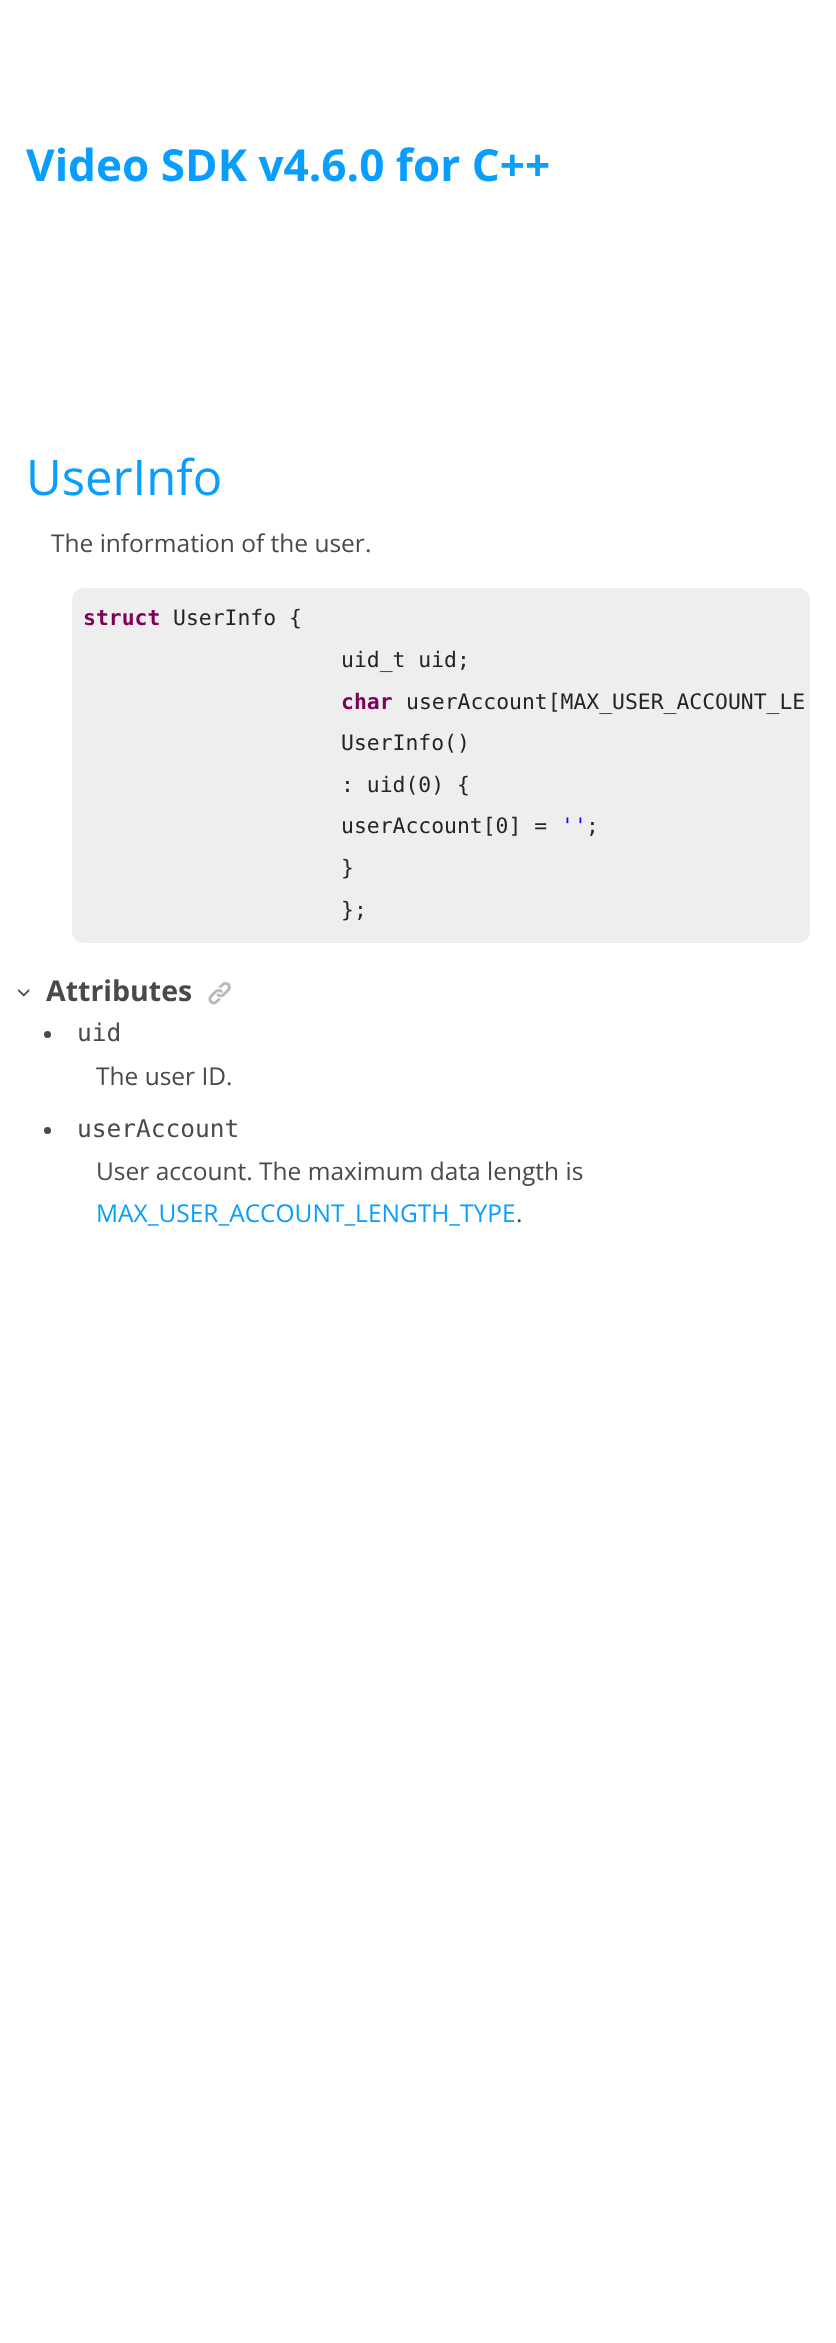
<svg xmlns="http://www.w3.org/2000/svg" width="836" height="2343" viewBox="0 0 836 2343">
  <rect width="100%" height="100%" fill="rgb(255,255,255)"/>
  <text x="26" y="181" font-family="Open Sans" font-size="44.1" font-weight="bold" fill="rgb(9,157,253)">Video SDK v4.6.0 for C++</text>
  <text x="26" y="495" font-family="Open Sans" font-size="49" fill="rgb(9,157,253)">UserInfo</text>
  <text x="51" y="552" font-family="Open Sans" font-size="24.5" fill="rgb(73,73,73)">The information of the user.</text>
  <rect x="72" y="588" width="738" height="355" rx="12" fill="rgb(238,238,238)"/>
  <text x="83" y="625" font-family="DejaVu Sans Mono" font-size="21.4" font-weight="bold" fill="rgb(127,0,85)">struct</text>
  <g font-family="DejaVu Sans Mono" font-size="21.4" fill="rgb(33,37,41)">
    <text x="173" y="625">UserInfo {</text>
    <text x="341" y="667">uid_t uid;</text>
  </g>
  <text x="341" y="709" font-family="DejaVu Sans Mono" font-size="21.4" font-weight="bold" fill="rgb(127,0,85)">char</text>
  <g font-family="DejaVu Sans Mono" font-size="21.4" fill="rgb(33,37,41)">
    <text x="406" y="709">userAccount[MAX_USER_ACCOUNT_LE</text>
    <text>
      <tspan x="341" y="750">UserInfo()</tspan>
      <tspan x="341" y="792">: uid(0) {</tspan>
      <tspan x="341" y="833">userAccount[0] =</tspan>
    </text>
  </g>
  <text x="561" y="833" font-family="DejaVu Sans Mono" font-size="21.4" fill="rgb(42,0,255)">''</text>
  <g font-family="DejaVu Sans Mono" font-size="21.4" fill="rgb(33,37,41)">
    <text x="586" y="833">;</text>
    <text>
      <tspan x="341" y="875">}</tspan>
      <tspan x="341" y="917">};</tspan>
    </text>
  </g>
  <image x="18" y="989" width="12" height="8" href="pic1.png"/>
  <text x="46" y="1001" font-family="Open Sans" font-size="28.5" font-weight="bold" fill="rgb(73,73,73)">Attributes</text>
  <image x="208" y="981" width="23" height="24" href="pic2.png"/>
  <circle cx="47.5" cy="1034.5" r="3.5" fill="rgb(73,73,73)"/>
  <text x="77" y="1041" font-family="DejaVu Sans Mono" font-size="24.5" fill="rgb(73,73,73)">uid</text>
  <text x="96" y="1085" font-family="Open Sans" font-size="24.5" fill="rgb(73,73,73)">The user ID.</text>
  <circle cx="47.5" cy="1130.5" r="3.5" fill="rgb(73,73,73)"/>
  <text x="77" y="1137" font-family="DejaVu Sans Mono" font-size="24.5" fill="rgb(73,73,73)">userAccount</text>
  <text x="96" y="1180" font-family="Open Sans" font-size="24.5" fill="rgb(73,73,73)">User account. The maximum data length is</text>
  <text x="96" y="1222" font-family="Open Sans" font-size="24.5" fill="rgb(9,157,253)">MAX_USER_ACCOUNT_LENGTH_TYPE</text>
  <text x="516" y="1222" font-family="Open Sans" font-size="24.5" fill="rgb(73,73,73)">.</text>
</svg>
